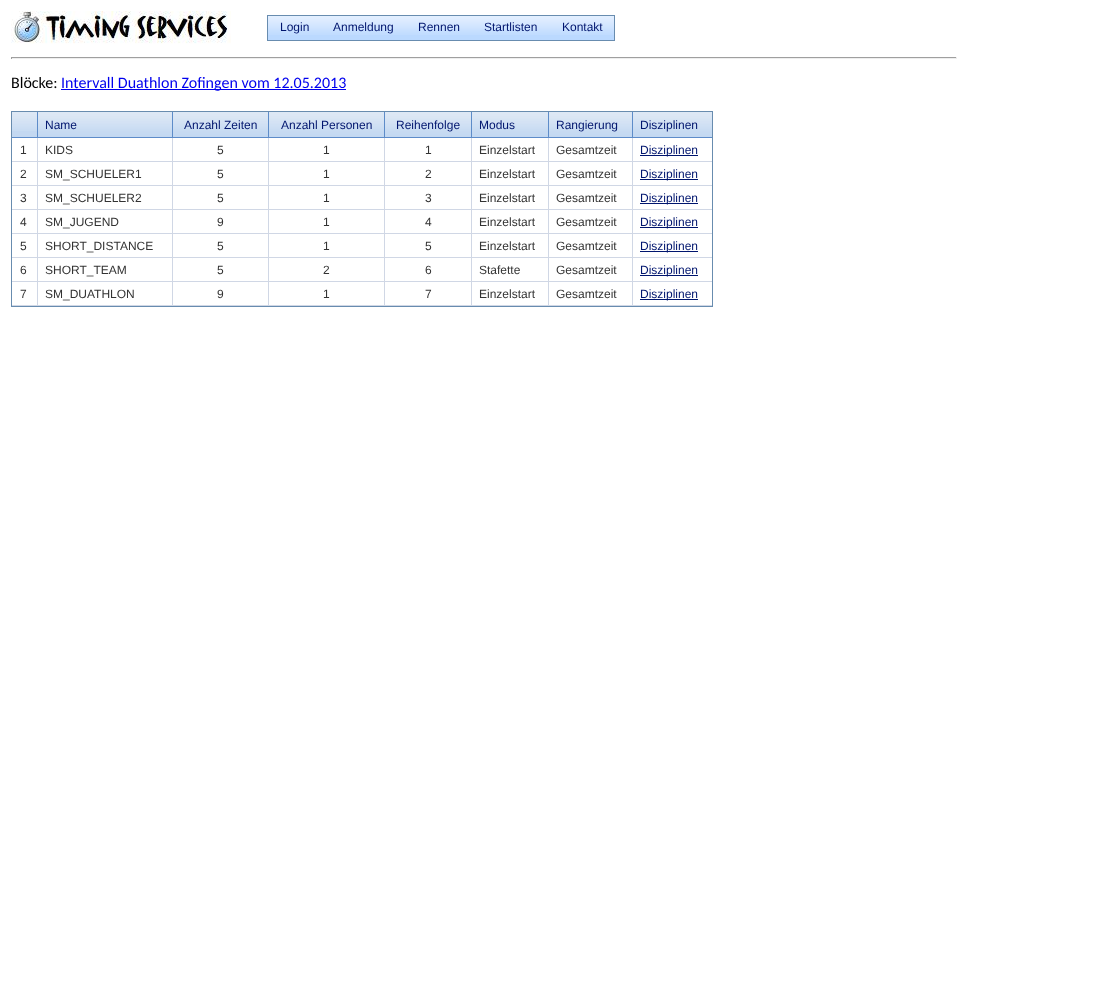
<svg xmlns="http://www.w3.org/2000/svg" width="1102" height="996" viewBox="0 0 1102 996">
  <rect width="100%" height="100%" fill="rgb(255,255,255)"/>
  <image x="11" y="11" width="220" height="33" href="pic1.png"/>
  <rect x="268" y="35" width="346" height="5" fill="rgb(187,217,255)"/>
  <image x="268" y="16" width="346" height="19" href="pic2.png"/>
  <rect x="267.5" y="15.5" width="347" height="25" fill="none" stroke="rgb(104,140,175)"/>
  <g font-family="Liberation Sans" font-size="12" fill="rgb(0,21,110)">
    <text x="280" y="31">Login</text>
    <text x="333" y="31">Anmeldung</text>
    <text x="418" y="31">Rennen</text>
    <text x="484" y="31">Startlisten</text>
    <text x="562" y="31">Kontakt</text>
  </g>
  <rect x="11" y="57" width="946" height="1" fill="rgb(159,159,159)"/>
  <rect x="956" y="57" width="1" height="2" fill="rgb(238,238,238)"/>
  <rect x="11" y="58" width="946" height="1" fill="rgb(238,238,238)"/>
  <rect x="11" y="57" width="1" height="2" fill="rgb(159,159,159)"/>
  <text x="11" y="88" font-family="Carlito" font-size="16" fill="rgb(0,0,0)">Blöcke:</text>
  <rect x="61" y="89" width="285" height="1" fill="rgb(0,0,238)"/>
  <text x="61" y="88" font-family="Carlito" font-size="16" fill="rgb(0,0,238)">Intervall Duathlon Zofingen vom 12.05.2013</text>
  <rect x="11.5" y="111.5" width="701" height="195" fill="none" stroke="rgb(104,140,175)"/>
  <rect x="12" y="131" width="25" height="6" fill="rgb(195,216,241)"/>
  <image x="12" y="112" width="25" height="19" href="pic3.png"/>
  <rect x="12" y="137" width="700" height="1" fill="rgb(93,140,201)"/>
  <image x="38" y="112" width="134" height="25" href="pic4.png"/>
  <rect x="37" y="112" width="1" height="26" fill="rgb(93,140,201)"/>
  <text x="45" y="129" font-family="Liberation Sans" font-size="12" fill="rgb(0,21,110)">Name</text>
  <image x="173" y="112" width="95" height="25" href="pic5.png"/>
  <rect x="172" y="112" width="1" height="26" fill="rgb(93,140,201)"/>
  <text x="184" y="129" font-family="Liberation Sans" font-size="12" fill="rgb(0,21,110)">Anzahl Zeiten</text>
  <image x="269" y="112" width="115" height="25" href="pic6.png"/>
  <rect x="268" y="112" width="1" height="26" fill="rgb(93,140,201)"/>
  <text x="281" y="129" font-family="Liberation Sans" font-size="12" fill="rgb(0,21,110)">Anzahl Personen</text>
  <image x="385" y="112" width="86" height="25" href="pic7.png"/>
  <rect x="384" y="112" width="1" height="26" fill="rgb(93,140,201)"/>
  <text x="396" y="129" font-family="Liberation Sans" font-size="12" fill="rgb(0,21,110)">Reihenfolge</text>
  <image x="472" y="112" width="76" height="25" href="pic8.png"/>
  <rect x="471" y="112" width="1" height="26" fill="rgb(93,140,201)"/>
  <text x="479" y="129" font-family="Liberation Sans" font-size="12" fill="rgb(0,21,110)">Modus</text>
  <image x="549" y="112" width="83" height="25" href="pic9.png"/>
  <rect x="548" y="112" width="1" height="26" fill="rgb(93,140,201)"/>
  <text x="556" y="129" font-family="Liberation Sans" font-size="12" fill="rgb(0,21,110)">Rangierung</text>
  <image x="633" y="112" width="79" height="25" href="pic10.png"/>
  <rect x="632" y="112" width="1" height="26" fill="rgb(93,140,201)"/>
  <text x="640" y="129" font-family="Liberation Sans" font-size="12" fill="rgb(0,21,110)">Disziplinen</text>
  <rect x="12" y="161" width="700" height="1" fill="rgb(208,215,229)"/>
  <text x="20" y="154" font-family="Liberation Sans" font-size="12" fill="rgb(51,51,51)">1</text>
  <rect x="37" y="138" width="1" height="24" fill="rgb(208,215,229)"/>
  <text x="45" y="154" font-family="Liberation Sans" font-size="12" fill="rgb(51,51,51)">KIDS</text>
  <rect x="172" y="138" width="1" height="24" fill="rgb(208,215,229)"/>
  <text x="217" y="154" font-family="Liberation Sans" font-size="12" fill="rgb(51,51,51)">5</text>
  <rect x="268" y="138" width="1" height="24" fill="rgb(208,215,229)"/>
  <text x="323" y="154" font-family="Liberation Sans" font-size="12" fill="rgb(51,51,51)">1</text>
  <rect x="384" y="138" width="1" height="24" fill="rgb(208,215,229)"/>
  <text x="425" y="154" font-family="Liberation Sans" font-size="12" fill="rgb(51,51,51)">1</text>
  <rect x="471" y="138" width="1" height="24" fill="rgb(208,215,229)"/>
  <text x="479" y="154" font-family="Liberation Sans" font-size="12" fill="rgb(51,51,51)">Einzelstart</text>
  <rect x="548" y="138" width="1" height="24" fill="rgb(208,215,229)"/>
  <text x="556" y="154" font-family="Liberation Sans" font-size="12" fill="rgb(51,51,51)">Gesamtzeit</text>
  <rect x="632" y="138" width="1" height="24" fill="rgb(208,215,229)"/>
  <rect x="640" y="155" width="58" height="1" fill="rgb(0,21,110)"/>
  <text x="640" y="154" font-family="Liberation Sans" font-size="12" fill="rgb(0,21,110)">Disziplinen</text>
  <rect x="12" y="185" width="700" height="1" fill="rgb(208,215,229)"/>
  <text x="20" y="178" font-family="Liberation Sans" font-size="12" fill="rgb(51,51,51)">2</text>
  <rect x="37" y="162" width="1" height="24" fill="rgb(208,215,229)"/>
  <text x="45" y="178" font-family="Liberation Sans" font-size="12" fill="rgb(51,51,51)">SM_SCHUELER1</text>
  <rect x="172" y="162" width="1" height="24" fill="rgb(208,215,229)"/>
  <text x="217" y="178" font-family="Liberation Sans" font-size="12" fill="rgb(51,51,51)">5</text>
  <rect x="268" y="162" width="1" height="24" fill="rgb(208,215,229)"/>
  <text x="323" y="178" font-family="Liberation Sans" font-size="12" fill="rgb(51,51,51)">1</text>
  <rect x="384" y="162" width="1" height="24" fill="rgb(208,215,229)"/>
  <text x="425" y="178" font-family="Liberation Sans" font-size="12" fill="rgb(51,51,51)">2</text>
  <rect x="471" y="162" width="1" height="24" fill="rgb(208,215,229)"/>
  <text x="479" y="178" font-family="Liberation Sans" font-size="12" fill="rgb(51,51,51)">Einzelstart</text>
  <rect x="548" y="162" width="1" height="24" fill="rgb(208,215,229)"/>
  <text x="556" y="178" font-family="Liberation Sans" font-size="12" fill="rgb(51,51,51)">Gesamtzeit</text>
  <rect x="632" y="162" width="1" height="24" fill="rgb(208,215,229)"/>
  <rect x="640" y="179" width="58" height="1" fill="rgb(0,21,110)"/>
  <text x="640" y="178" font-family="Liberation Sans" font-size="12" fill="rgb(0,21,110)">Disziplinen</text>
  <rect x="12" y="209" width="700" height="1" fill="rgb(208,215,229)"/>
  <text x="20" y="202" font-family="Liberation Sans" font-size="12" fill="rgb(51,51,51)">3</text>
  <rect x="37" y="186" width="1" height="24" fill="rgb(208,215,229)"/>
  <text x="45" y="202" font-family="Liberation Sans" font-size="12" fill="rgb(51,51,51)">SM_SCHUELER2</text>
  <rect x="172" y="186" width="1" height="24" fill="rgb(208,215,229)"/>
  <text x="217" y="202" font-family="Liberation Sans" font-size="12" fill="rgb(51,51,51)">5</text>
  <rect x="268" y="186" width="1" height="24" fill="rgb(208,215,229)"/>
  <text x="323" y="202" font-family="Liberation Sans" font-size="12" fill="rgb(51,51,51)">1</text>
  <rect x="384" y="186" width="1" height="24" fill="rgb(208,215,229)"/>
  <text x="425" y="202" font-family="Liberation Sans" font-size="12" fill="rgb(51,51,51)">3</text>
  <rect x="471" y="186" width="1" height="24" fill="rgb(208,215,229)"/>
  <text x="479" y="202" font-family="Liberation Sans" font-size="12" fill="rgb(51,51,51)">Einzelstart</text>
  <rect x="548" y="186" width="1" height="24" fill="rgb(208,215,229)"/>
  <text x="556" y="202" font-family="Liberation Sans" font-size="12" fill="rgb(51,51,51)">Gesamtzeit</text>
  <rect x="632" y="186" width="1" height="24" fill="rgb(208,215,229)"/>
  <rect x="640" y="203" width="58" height="1" fill="rgb(0,21,110)"/>
  <text x="640" y="202" font-family="Liberation Sans" font-size="12" fill="rgb(0,21,110)">Disziplinen</text>
  <rect x="12" y="233" width="700" height="1" fill="rgb(208,215,229)"/>
  <text x="20" y="226" font-family="Liberation Sans" font-size="12" fill="rgb(51,51,51)">4</text>
  <rect x="37" y="210" width="1" height="24" fill="rgb(208,215,229)"/>
  <text x="45" y="226" font-family="Liberation Sans" font-size="12" fill="rgb(51,51,51)">SM_JUGEND</text>
  <rect x="172" y="210" width="1" height="24" fill="rgb(208,215,229)"/>
  <text x="217" y="226" font-family="Liberation Sans" font-size="12" fill="rgb(51,51,51)">9</text>
  <rect x="268" y="210" width="1" height="24" fill="rgb(208,215,229)"/>
  <text x="323" y="226" font-family="Liberation Sans" font-size="12" fill="rgb(51,51,51)">1</text>
  <rect x="384" y="210" width="1" height="24" fill="rgb(208,215,229)"/>
  <text x="425" y="226" font-family="Liberation Sans" font-size="12" fill="rgb(51,51,51)">4</text>
  <rect x="471" y="210" width="1" height="24" fill="rgb(208,215,229)"/>
  <text x="479" y="226" font-family="Liberation Sans" font-size="12" fill="rgb(51,51,51)">Einzelstart</text>
  <rect x="548" y="210" width="1" height="24" fill="rgb(208,215,229)"/>
  <text x="556" y="226" font-family="Liberation Sans" font-size="12" fill="rgb(51,51,51)">Gesamtzeit</text>
  <rect x="632" y="210" width="1" height="24" fill="rgb(208,215,229)"/>
  <rect x="640" y="227" width="58" height="1" fill="rgb(0,21,110)"/>
  <text x="640" y="226" font-family="Liberation Sans" font-size="12" fill="rgb(0,21,110)">Disziplinen</text>
  <rect x="12" y="257" width="700" height="1" fill="rgb(208,215,229)"/>
  <text x="20" y="250" font-family="Liberation Sans" font-size="12" fill="rgb(51,51,51)">5</text>
  <rect x="37" y="234" width="1" height="24" fill="rgb(208,215,229)"/>
  <text x="45" y="250" font-family="Liberation Sans" font-size="12" fill="rgb(51,51,51)">SHORT_DISTANCE</text>
  <rect x="172" y="234" width="1" height="24" fill="rgb(208,215,229)"/>
  <text x="217" y="250" font-family="Liberation Sans" font-size="12" fill="rgb(51,51,51)">5</text>
  <rect x="268" y="234" width="1" height="24" fill="rgb(208,215,229)"/>
  <text x="323" y="250" font-family="Liberation Sans" font-size="12" fill="rgb(51,51,51)">1</text>
  <rect x="384" y="234" width="1" height="24" fill="rgb(208,215,229)"/>
  <text x="425" y="250" font-family="Liberation Sans" font-size="12" fill="rgb(51,51,51)">5</text>
  <rect x="471" y="234" width="1" height="24" fill="rgb(208,215,229)"/>
  <text x="479" y="250" font-family="Liberation Sans" font-size="12" fill="rgb(51,51,51)">Einzelstart</text>
  <rect x="548" y="234" width="1" height="24" fill="rgb(208,215,229)"/>
  <text x="556" y="250" font-family="Liberation Sans" font-size="12" fill="rgb(51,51,51)">Gesamtzeit</text>
  <rect x="632" y="234" width="1" height="24" fill="rgb(208,215,229)"/>
  <rect x="640" y="251" width="58" height="1" fill="rgb(0,21,110)"/>
  <text x="640" y="250" font-family="Liberation Sans" font-size="12" fill="rgb(0,21,110)">Disziplinen</text>
  <rect x="12" y="281" width="700" height="1" fill="rgb(208,215,229)"/>
  <text x="20" y="274" font-family="Liberation Sans" font-size="12" fill="rgb(51,51,51)">6</text>
  <rect x="37" y="258" width="1" height="24" fill="rgb(208,215,229)"/>
  <text x="45" y="274" font-family="Liberation Sans" font-size="12" fill="rgb(51,51,51)">SHORT_TEAM</text>
  <rect x="172" y="258" width="1" height="24" fill="rgb(208,215,229)"/>
  <text x="217" y="274" font-family="Liberation Sans" font-size="12" fill="rgb(51,51,51)">5</text>
  <rect x="268" y="258" width="1" height="24" fill="rgb(208,215,229)"/>
  <text x="323" y="274" font-family="Liberation Sans" font-size="12" fill="rgb(51,51,51)">2</text>
  <rect x="384" y="258" width="1" height="24" fill="rgb(208,215,229)"/>
  <text x="425" y="274" font-family="Liberation Sans" font-size="12" fill="rgb(51,51,51)">6</text>
  <rect x="471" y="258" width="1" height="24" fill="rgb(208,215,229)"/>
  <text x="479" y="274" font-family="Liberation Sans" font-size="12" fill="rgb(51,51,51)">Stafette</text>
  <rect x="548" y="258" width="1" height="24" fill="rgb(208,215,229)"/>
  <text x="556" y="274" font-family="Liberation Sans" font-size="12" fill="rgb(51,51,51)">Gesamtzeit</text>
  <rect x="632" y="258" width="1" height="24" fill="rgb(208,215,229)"/>
  <rect x="640" y="275" width="58" height="1" fill="rgb(0,21,110)"/>
  <text x="640" y="274" font-family="Liberation Sans" font-size="12" fill="rgb(0,21,110)">Disziplinen</text>
  <rect x="12" y="305" width="700" height="1" fill="rgb(208,215,229)"/>
  <text x="20" y="298" font-family="Liberation Sans" font-size="12" fill="rgb(51,51,51)">7</text>
  <rect x="37" y="282" width="1" height="24" fill="rgb(208,215,229)"/>
  <text x="45" y="298" font-family="Liberation Sans" font-size="12" fill="rgb(51,51,51)">SM_DUATHLON</text>
  <rect x="172" y="282" width="1" height="24" fill="rgb(208,215,229)"/>
  <text x="217" y="298" font-family="Liberation Sans" font-size="12" fill="rgb(51,51,51)">9</text>
  <rect x="268" y="282" width="1" height="24" fill="rgb(208,215,229)"/>
  <text x="323" y="298" font-family="Liberation Sans" font-size="12" fill="rgb(51,51,51)">1</text>
  <rect x="384" y="282" width="1" height="24" fill="rgb(208,215,229)"/>
  <text x="425" y="298" font-family="Liberation Sans" font-size="12" fill="rgb(51,51,51)">7</text>
  <rect x="471" y="282" width="1" height="24" fill="rgb(208,215,229)"/>
  <text x="479" y="298" font-family="Liberation Sans" font-size="12" fill="rgb(51,51,51)">Einzelstart</text>
  <rect x="548" y="282" width="1" height="24" fill="rgb(208,215,229)"/>
  <text x="556" y="298" font-family="Liberation Sans" font-size="12" fill="rgb(51,51,51)">Gesamtzeit</text>
  <rect x="632" y="282" width="1" height="24" fill="rgb(208,215,229)"/>
  <rect x="640" y="299" width="58" height="1" fill="rgb(0,21,110)"/>
  <text x="640" y="298" font-family="Liberation Sans" font-size="12" fill="rgb(0,21,110)">Disziplinen</text>
</svg>
